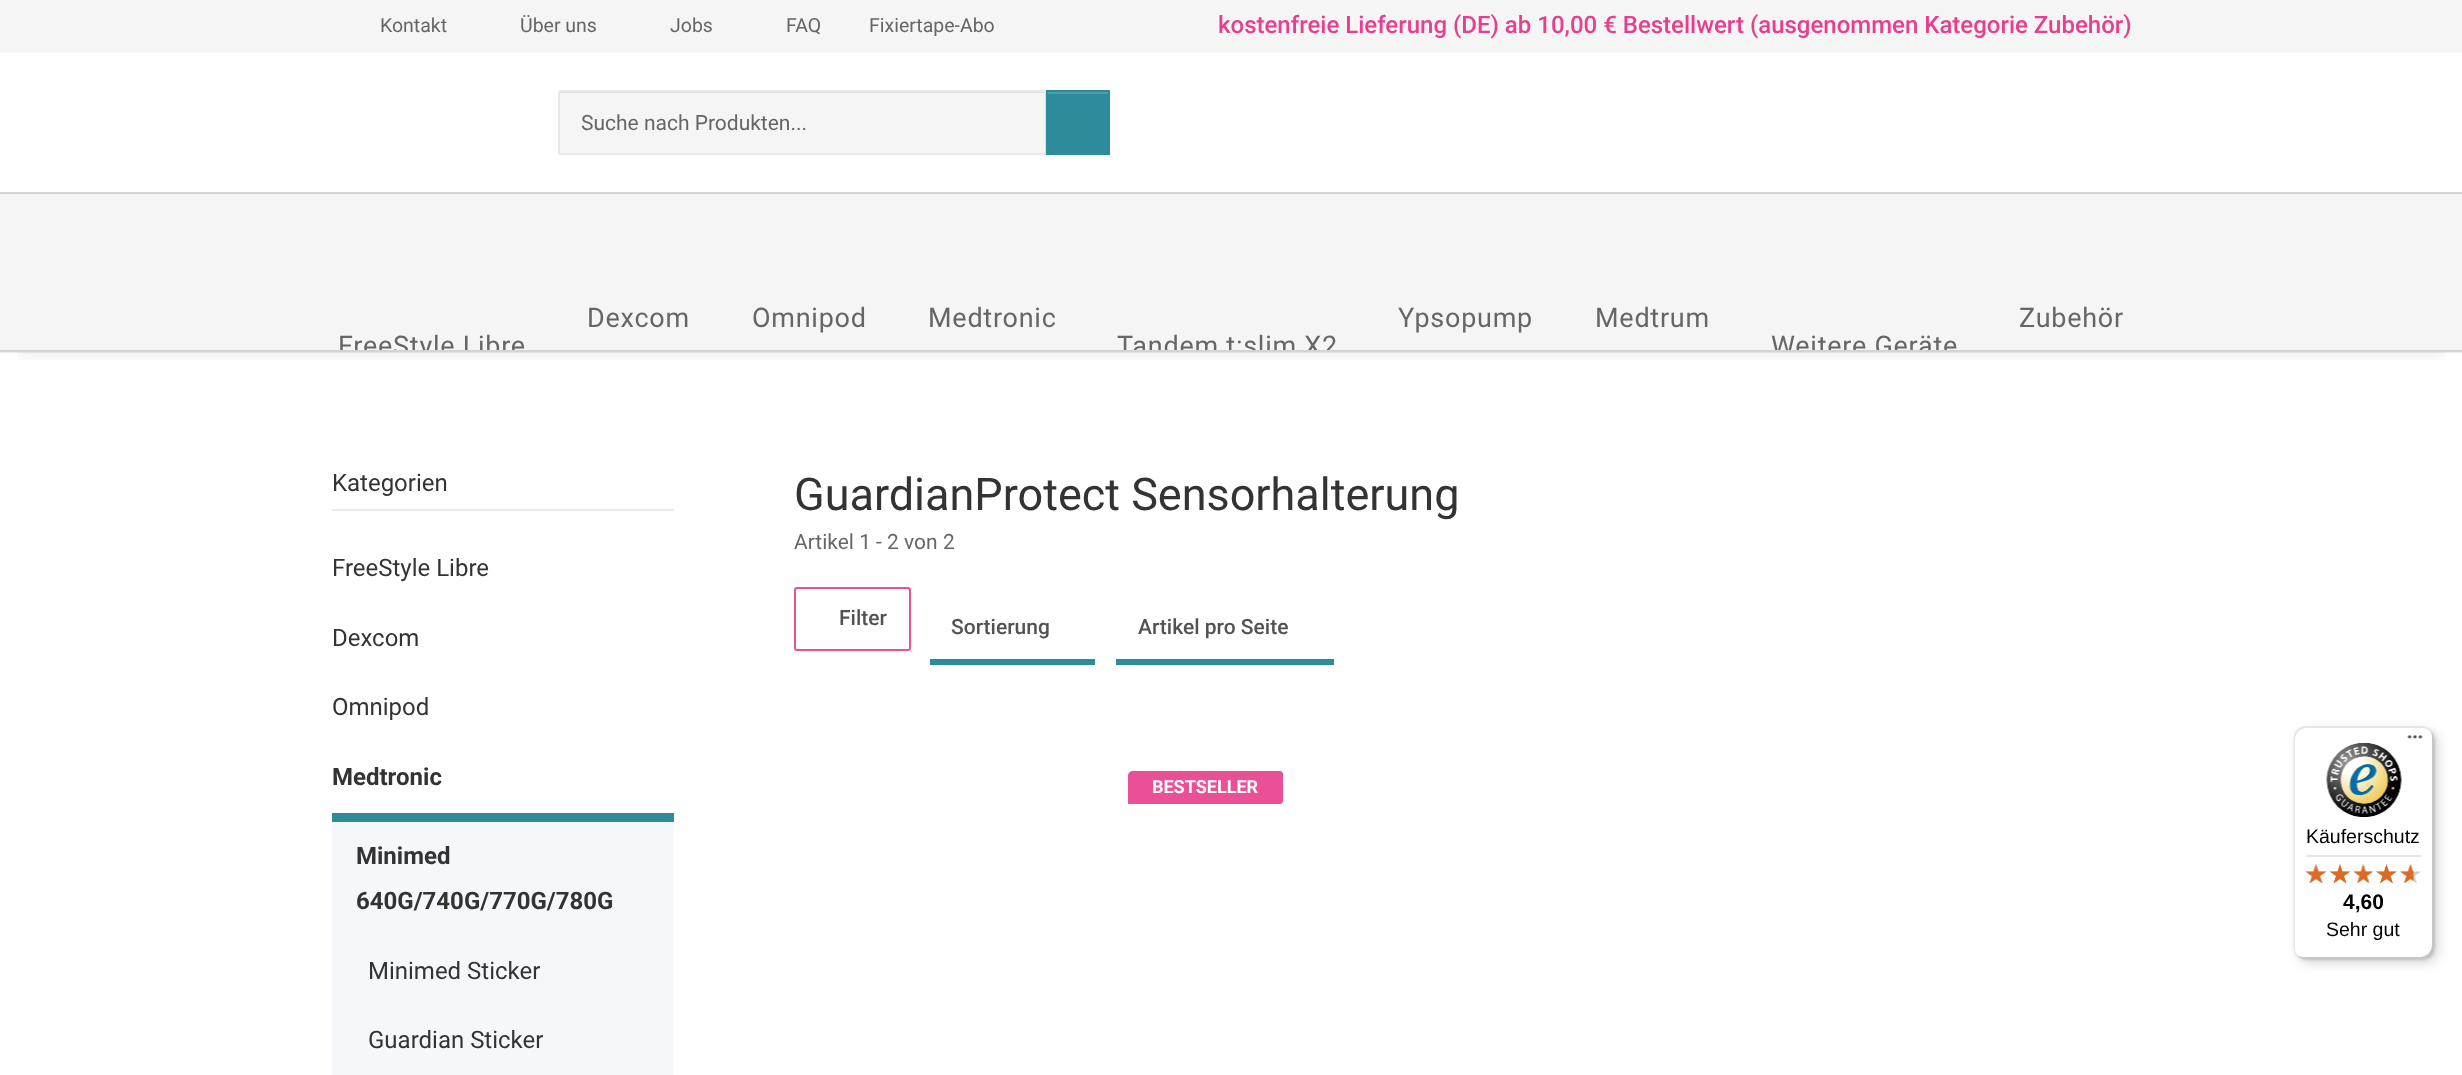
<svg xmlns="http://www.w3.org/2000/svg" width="2462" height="1075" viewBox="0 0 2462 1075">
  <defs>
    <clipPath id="clip1"><rect x="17" y="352" width="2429" height="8"/></clipPath>
    <clipPath id="clip2"><rect x="329" y="320" width="205" height="30"/></clipPath>
    <clipPath id="clip3"><rect x="1110" y="320" width="236" height="30"/></clipPath>
    <clipPath id="clip4"><rect x="1763" y="320" width="204" height="30"/></clipPath>
  </defs>
  <rect width="100%" height="100%" fill="rgb(255,255,255)"/>
  <rect x="0" y="0" width="2462" height="53" fill="rgb(245,245,245)"/>
  <g font-family="Roboto" font-size="19.5" fill="rgb(102,102,102)">
    <text x="380" y="32">Kontakt</text>
    <text x="520" y="32">Über uns</text>
    <text x="670" y="32">Jobs</text>
    <text x="786" y="32">FAQ</text>
    <text x="869" y="32">Fixiertape-Abo</text>
  </g>
  <text x="1218" y="33" font-family="Roboto" font-size="24" font-weight="500" fill="rgb(232,62,140)">kostenfreie Lieferung (DE) ab 10,00 € Bestellwert (ausgenommen Kategorie Zubehör)</text>
  <g clip-path="url(#clip1)">
    <rect x="18" y="95" width="2427" height="262" fill="rgba(0,0,0,0.06)" filter="blur(7px)"/>
  </g>
  <path d="M561.5 92H1046V153H561.5C560.5 153 560 152.5 560 151.5V93.5C560 92.5 560.5 92 561.5 92Z" fill="rgb(245,245,245)"/>
  <path d="M561 93H1046V92H562C560 92 560 93 560 94Z" fill="rgba(0,0,0,0.08)"/>
  <path d="M561 91H1046V154H561C560 154 559 153 559 152V93C559 92 560 91 561 91Z" fill="none" stroke="rgb(232,232,232)" stroke-width="2"/>
  <text x="581" y="130" font-family="Roboto" font-size="21" fill="rgb(102,102,102)">Suche nach Produkten...</text>
  <rect x="1046" y="92" width="64" height="64" fill="rgba(0,0,0,0.07)" filter="blur(1px)"/>
  <rect x="1048" y="94" width="60" height="59" fill="rgb(45,139,156)"/>
  <rect x="1047" y="92" width="62" height="2" fill="rgb(77,156,171)"/>
  <rect x="1047" y="91" width="62" height="63" fill="none" stroke="rgb(45,139,156)" stroke-width="2"/>
  <rect x="0" y="352" width="2462" height="1" fill="rgba(0,0,0,0.08)"/>
  <rect x="0" y="194" width="2462" height="156" fill="rgb(245,245,245)"/>
  <rect x="0" y="192" width="2462" height="2" fill="rgb(212,212,212)"/>
  <rect x="0" y="350" width="2462" height="2" fill="rgb(212,212,212)"/>
  <g font-family="Roboto" font-size="27" letter-spacing="0.75" fill="rgb(102,102,102)">
    <text x="587" y="327">Dexcom</text>
    <text x="752" y="327">Omnipod</text>
    <text x="928" y="327">Medtronic</text>
    <text x="1398" y="327">Ypsopump</text>
    <text x="1595" y="327">Medtrum</text>
    <text x="2019" y="327">Zubehör</text>
  </g>
  <g clip-path="url(#clip2)">
    <text x="338" y="355" font-family="Roboto" font-size="27" letter-spacing="0.75" fill="rgb(102,102,102)">FreeStyle Libre</text>
  </g>
  <g clip-path="url(#clip3)">
    <text x="1117" y="355" font-family="Roboto" font-size="27" letter-spacing="0.75" fill="rgb(102,102,102)">Tandem t:slim X2</text>
  </g>
  <g clip-path="url(#clip4)">
    <text x="1771" y="355" font-family="Roboto" font-size="27" letter-spacing="0.75" fill="rgb(102,102,102)">Weitere Geräte</text>
  </g>
  <rect x="332" y="509" width="342" height="2" fill="rgb(235,235,235)"/>
  <g font-family="Roboto" font-size="24" fill="rgb(51,51,51)">
    <text x="332" y="491">Kategorien</text>
    <text x="332" y="576">FreeStyle Libre</text>
    <text x="332" y="646">Dexcom</text>
    <text x="332" y="715">Omnipod</text>
  </g>
  <rect x="332" y="813" width="342" height="9" fill="rgb(45,139,156)"/>
  <text x="332" y="785" font-family="Roboto" font-size="24" font-weight="bold" fill="rgb(51,51,51)">Medtronic</text>
  <rect x="332" y="822" width="342" height="253" fill="rgb(245,247,250)"/>
  <g font-family="Roboto" font-size="24" font-weight="bold" fill="rgb(51,51,51)">
    <text>
      <tspan x="356" y="864">Minimed</tspan>
      <tspan x="356" y="909">640G/740G/770G/780G</tspan>
    </text>
  </g>
  <g font-family="Roboto" font-size="24" fill="rgb(51,51,51)">
    <text x="368" y="979">Minimed Sticker</text>
    <text x="368" y="1048">Guardian Sticker</text>
  </g>
  <text x="794" y="510" font-family="Roboto" font-size="45" fill="rgb(51,51,51)">GuardianProtect Sensorhalterung</text>
  <text x="794" y="549" font-family="Roboto" font-size="21" fill="rgb(102,102,102)">Artikel 1 - 2 von 2</text>
  <rect x="795" y="588" width="115" height="62" rx="2" fill="none" stroke="rgb(233,80,149)" stroke-width="2"/>
  <text x="839" y="625" font-family="Roboto" font-size="21" font-weight="500" fill="rgb(82,82,82)">Filter</text>
  <rect x="930" y="659" width="165" height="6" fill="rgb(45,139,156)"/>
  <text x="951" y="634" font-family="Roboto" font-size="21" font-weight="500" fill="rgb(82,82,82)">Sortierung</text>
  <rect x="1116" y="659" width="218" height="6" fill="rgb(45,139,156)"/>
  <text x="1138" y="634" font-family="Roboto" font-size="21" font-weight="500" fill="rgb(82,82,82)">Artikel pro Seite</text>
  <path d="M1133 771H1280C1281.5 771 1283 772.5 1283 774V801C1283 802.5 1281.5 804 1280 804H1128V776C1128 773 1130 771 1133 771Z" fill="rgb(233,80,149)"/>
  <text x="1152" y="793" font-family="Roboto" font-size="18" font-weight="bold" fill="rgb(255,255,255)">BESTSELLER</text>
  <rect x="2298" y="731" width="140" height="232" rx="12" fill="rgba(0,0,0,0.15)" filter="blur(6px)"/>
  <rect x="2295" y="728" width="140" height="232" rx="12" fill="rgba(0,0,0,0.15)" filter="blur(1.5px)"/>
  <rect x="2294" y="726" width="139" height="233" rx="12" fill="rgb(255,255,255)"/>
  <path d="M2307 728H2422C2426 728 2430 730 2432 733C2430 729 2426 726 2421 726H2306C2299 726 2294 731 2294 738V947C2294 950 2295 953 2297 955C2296 953 2295 951 2295 948V740C2295 733 2300 728 2307 728Z" fill="rgb(229,229,229)"/>
  <path d="M2297 955C2299 957 2302 959 2306 959H2421C2428 959 2433 954 2433 947V738C2433 735 2432 733 2430 731C2431 732 2432 734 2432 736V945C2432 952 2426 957 2420 957H2304C2301 957 2299 956 2297 955Z" fill="rgba(0,0,0,0.2)"/>
  <path d="M2297 955C2299 957 2302 959 2306 959H2421C2428 959 2433 954 2433 947V738C2433 735 2432 732 2430 730C2431 732 2432 734 2432 737V946C2432 952 2427 958 2420 958H2305C2302 958 2299 957 2297 955Z" fill="rgba(50,50,50,0.2)"/>
  <path d="M2297 955C2299 957 2302 959 2306 959H2421C2428 959 2433 954 2433 947V738C2433 734 2431 731 2429 729C2431 731 2432 734 2432 737V946C2432 952 2427 958 2420 958H2305C2302 958 2299 957 2297 955Z" fill="rgba(255,255,255,0.3)"/>
  <image x="2407" y="735" width="16" height="4" href="pic1.png"/>
  <image x="2326" y="743" width="76" height="75" href="pic2.png"/>
  <text x="2306" y="843" font-family="Liberation Sans" font-size="19.5" fill="rgb(0,0,0)">Käuferschutz</text>
  <rect x="2306" y="855" width="115" height="2" fill="rgb(229,229,229)"/>
  <image x="2305" y="864" width="22" height="19" href="pic3.png"/>
  <image x="2330" y="864" width="20" height="19" href="pic4.png"/>
  <image x="2353" y="864" width="20" height="19" href="pic5.png"/>
  <image x="2376" y="864" width="21" height="19" href="pic6.png"/>
  <image x="2400" y="864" width="21" height="19" href="pic7.png"/>
  <image x="2305" y="864" width="22" height="19" href="pic8.png"/>
  <image x="2330" y="864" width="20" height="20" href="pic9.png"/>
  <image x="2353" y="864" width="20" height="19" href="pic10.png"/>
  <image x="2376" y="864" width="21" height="20" href="pic11.png"/>
  <image x="2400" y="864" width="14" height="19" href="pic12.png"/>
  <text x="2343" y="909" font-family="Liberation Sans" font-size="21" font-weight="bold" fill="rgb(0,0,0)">4,60</text>
  <text x="2326" y="936" font-family="Liberation Sans" font-size="19.5" fill="rgb(0,0,0)">Sehr gut</text>
</svg>
